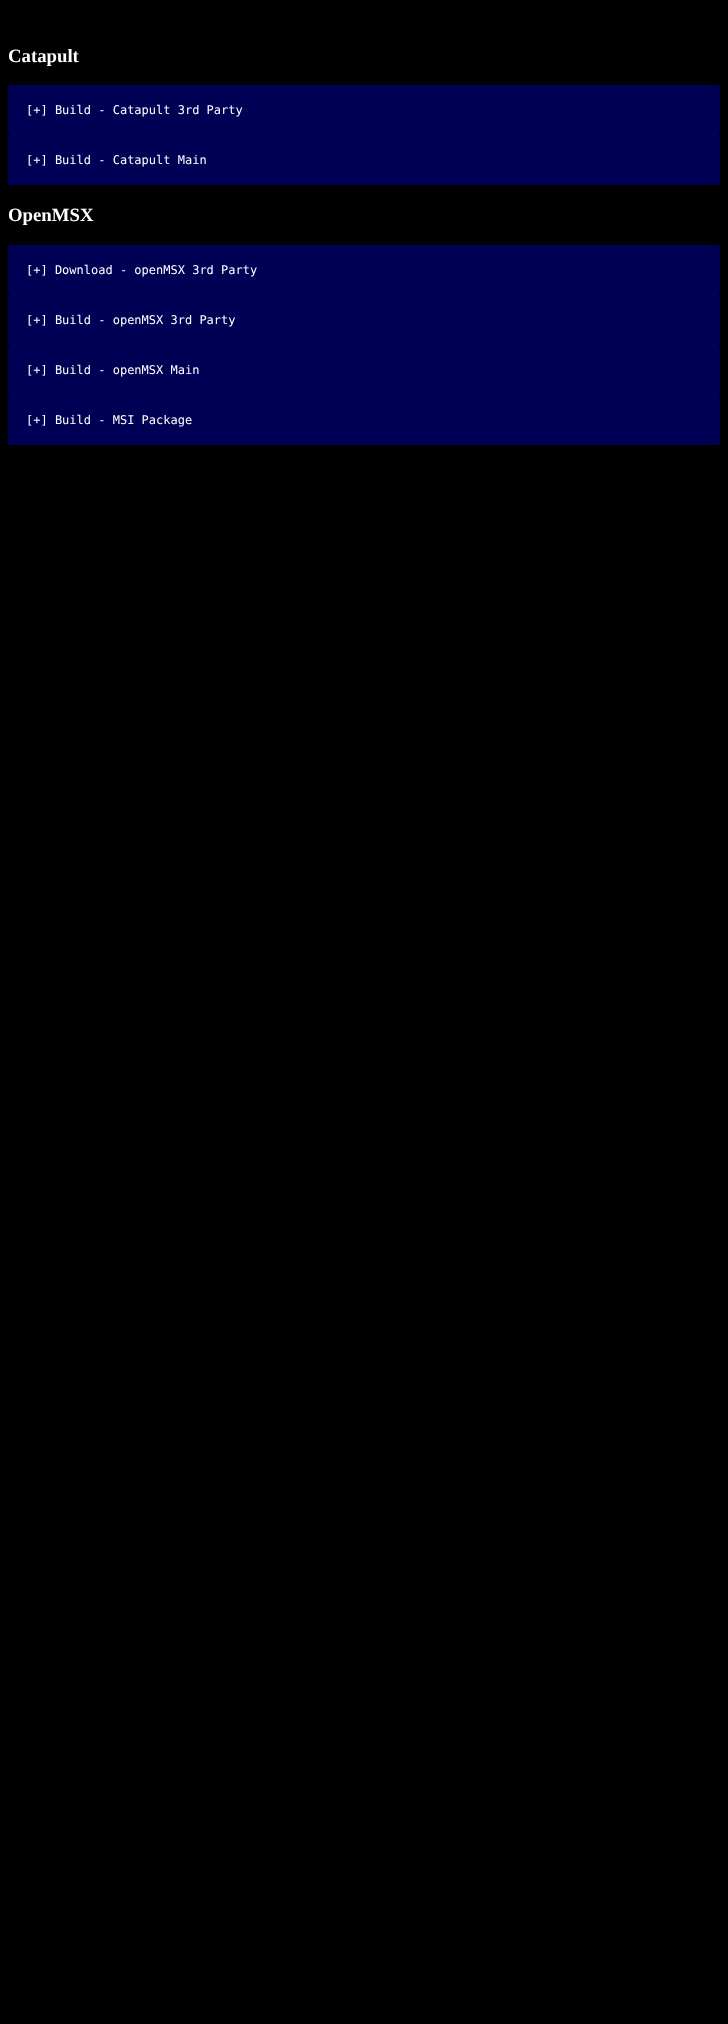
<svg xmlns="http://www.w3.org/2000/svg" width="728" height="2024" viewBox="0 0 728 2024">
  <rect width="100%" height="100%" fill="rgb(0,0,0)"/>
  <text x="8" y="62" font-family="Liberation Serif" font-size="18.75" font-weight="bold" fill="rgb(255,255,255)">Catapult</text>
  <rect x="8" y="85" width="712" height="50" rx="3" fill="rgb(0,0,85)"/>
  <text x="26" y="114" font-family="DejaVu Sans Mono" font-size="12" fill="rgb(255,255,255)">[+] Build - Catapult 3rd Party</text>
  <rect x="8" y="135" width="712" height="50" rx="3" fill="rgb(0,0,85)"/>
  <text x="26" y="164" font-family="DejaVu Sans Mono" font-size="12" fill="rgb(255,255,255)">[+] Build - Catapult Main</text>
  <text x="8" y="221" font-family="Liberation Serif" font-size="18.75" font-weight="bold" fill="rgb(255,255,255)">OpenMSX</text>
  <rect x="8" y="245" width="712" height="50" rx="3" fill="rgb(0,0,85)"/>
  <text x="26" y="274" font-family="DejaVu Sans Mono" font-size="12" fill="rgb(255,255,255)">[+] Download - openMSX 3rd Party</text>
  <rect x="8" y="295" width="712" height="50" rx="3" fill="rgb(0,0,85)"/>
  <text x="26" y="324" font-family="DejaVu Sans Mono" font-size="12" fill="rgb(255,255,255)">[+] Build - openMSX 3rd Party</text>
  <rect x="8" y="345" width="712" height="50" rx="3" fill="rgb(0,0,85)"/>
  <text x="26" y="374" font-family="DejaVu Sans Mono" font-size="12" fill="rgb(255,255,255)">[+] Build - openMSX Main</text>
  <rect x="8" y="395" width="712" height="50" rx="3" fill="rgb(0,0,85)"/>
  <text x="26" y="424" font-family="DejaVu Sans Mono" font-size="12" fill="rgb(255,255,255)">[+] Build - MSI Package</text>
</svg>
